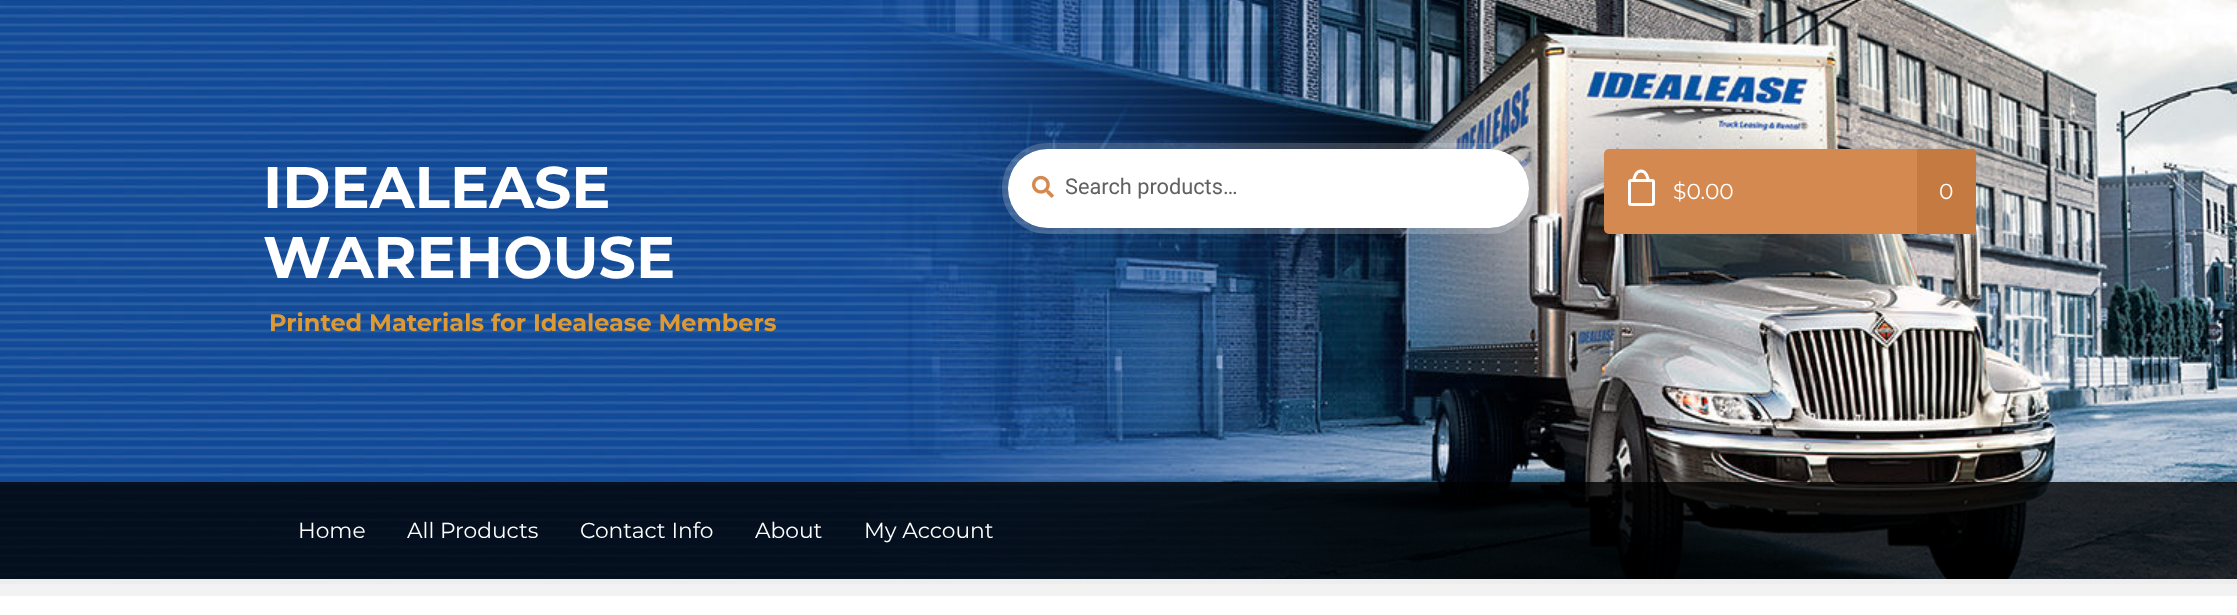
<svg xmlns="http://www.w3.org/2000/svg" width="2237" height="615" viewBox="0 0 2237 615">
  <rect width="100%" height="100%" fill="rgb(255,255,255)"/>
  <rect x="0" y="584" width="2237" height="12" fill="rgb(242,242,242)"/>
  <rect x="0" y="579" width="2237" height="5" fill="rgb(237,237,237)"/>
  <image x="0" y="0" width="2237" height="579" href="pic1.png"/>
  <g font-family="Montserrat" font-size="58.5" font-weight="bold" fill="rgb(255,255,255)">
    <text>
      <tspan x="263" y="208">IDEALEASE</tspan>
      <tspan x="263" y="278">WAREHOUSE</tspan>
    </text>
  </g>
  <text x="269" y="331" font-family="Montserrat" font-size="24" font-weight="bold" fill="rgb(221,153,51)">Printed Materials for Idealease Members</text>
  <rect x="1005" y="146" width="527" height="85" rx="42.5" fill="none" stroke="rgba(255,255,255,0.2)" stroke-width="6"/>
  <rect x="1008" y="149" width="521" height="79" rx="39.5" fill="rgb(255,255,255)"/>
  <image x="1032" y="175" width="22" height="23" href="pic2.png"/>
  <text x="1065" y="194" font-family="Roboto" font-size="21.75" fill="rgb(97,97,97)">Search products…</text>
  <rect x="1604" y="149" width="372" height="85" rx="5" fill="rgb(211,137,80)"/>
  <path d="M1641 171C1651 171 1651 196.5 1641 196.5C1631 196.5 1631 171 1641 171Z" fill="none" stroke="rgb(255,255,255)" stroke-width="3"/>
  <rect x="1629.5" y="180.5" width="24" height="24" rx="1.5" fill="rgb(211,137,80)" stroke="rgb(255,255,255)" stroke-width="3"/>
  <text x="1673" y="199" font-family="Montserrat" font-size="21.75" fill="rgb(255,255,255)">$0.00</text>
  <path d="M1917 149H1973C1974.5 149 1976 150.5 1976 152V231C1976 232.5 1974.5 234 1973 234H1917Z" fill="rgb(196,122,65)"/>
  <text x="1939" y="199" font-family="Montserrat" font-size="21.75" fill="rgb(255,255,255)">0</text>
  <rect x="0" y="482" width="2237" height="97" fill="rgba(0,0,0,0.8)"/>
  <g font-family="Montserrat" font-size="21.75" fill="rgb(255,255,255)">
    <text x="298" y="538">Home</text>
    <text x="407" y="538">All Products</text>
    <text x="580" y="538">Contact Info</text>
    <text x="755" y="538">About</text>
    <text x="864" y="538">My Account</text>
  </g>
</svg>
